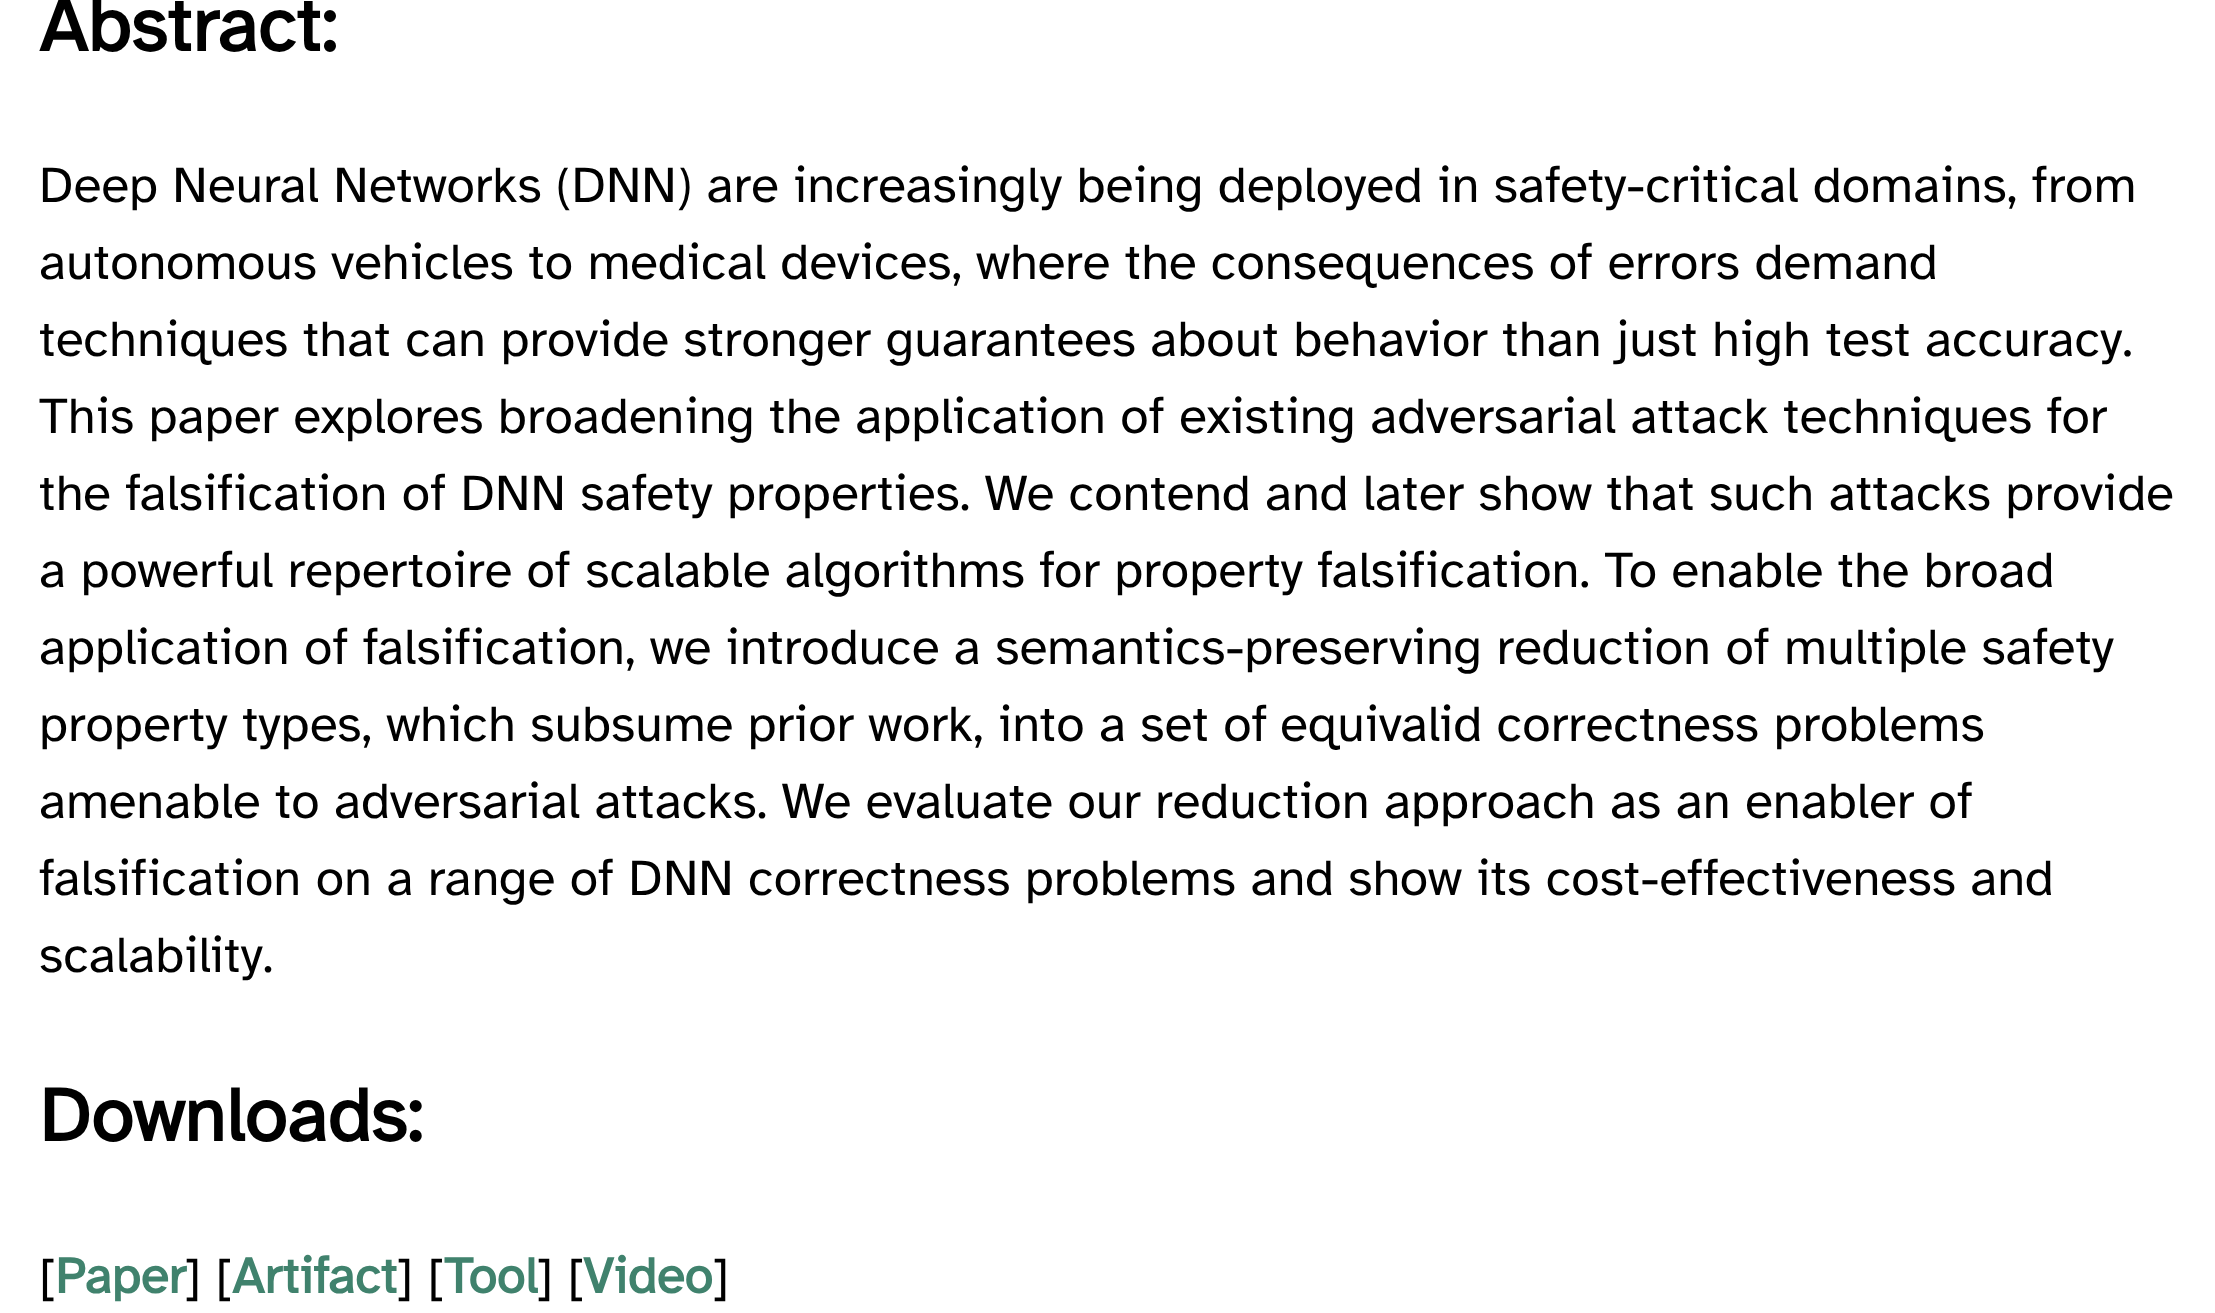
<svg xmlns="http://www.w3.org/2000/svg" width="2215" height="1313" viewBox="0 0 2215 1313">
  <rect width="100%" height="100%" fill="rgb(255,255,255)"/>
  <text x="39" y="51" font-family="Atkinson Hyperlegible" font-size="77" font-weight="bold" fill="rgb(0,0,0)">Abstract:</text>
  <g font-family="Atkinson Hyperlegible" font-size="51.35" fill="rgb(0,0,0)">
    <text>
      <tspan x="39" y="202">Deep Neural Networks (DNN) are increasingly being deployed in safety-critical domains, from</tspan>
      <tspan x="39" y="279">autonomous vehicles to medical devices, where the consequences of errors demand</tspan>
      <tspan x="39" y="356">techniques that can provide stronger guarantees about behavior than just high test accuracy.</tspan>
      <tspan x="39" y="433">This paper explores broadening the application of existing adversarial attack techniques for</tspan>
      <tspan x="39" y="510">the falsification of DNN safety properties. We contend and later show that such attacks provide</tspan>
      <tspan x="39" y="587">a powerful repertoire of scalable algorithms for property falsification. To enable the broad</tspan>
      <tspan x="39" y="664">application of falsification, we introduce a semantics-preserving reduction of multiple safety</tspan>
      <tspan x="39" y="741">property types, which subsume prior work, into a set of</tspan>
    </text>
    <text x="1280" y="741">equivalid correctness problems</text>
    <text>
      <tspan x="39" y="818">amenable to adversarial attacks. We evaluate our reduction approach as an enabler of</tspan>
      <tspan x="39" y="895">falsification on a range of DNN correctness problems and show its cost-effectiveness and</tspan>
      <tspan x="39" y="972">scalability.</tspan>
    </text>
  </g>
  <text x="39" y="1141" font-family="Atkinson Hyperlegible" font-size="77" font-weight="bold" fill="rgb(0,0,0)">Downloads:</text>
  <text x="39" y="1293" font-family="Atkinson Hyperlegible" font-size="51.35" fill="rgb(0,0,0)">[</text>
  <text x="55" y="1293" font-family="Atkinson Hyperlegible" font-size="51.35" font-weight="bold" fill="rgb(64,130,109)">Paper</text>
  <text x="185" y="1293" font-family="Atkinson Hyperlegible" font-size="51.35" fill="rgb(0,0,0)">] [</text>
  <text x="232" y="1293" font-family="Atkinson Hyperlegible" font-size="51.35" font-weight="bold" fill="rgb(64,130,109)">Artifact</text>
  <text x="397" y="1293" font-family="Atkinson Hyperlegible" font-size="51.35" fill="rgb(0,0,0)">] [</text>
  <text x="444" y="1293" font-family="Atkinson Hyperlegible" font-size="51.35" font-weight="bold" fill="rgb(64,130,109)">Tool</text>
  <text x="537" y="1293" font-family="Atkinson Hyperlegible" font-size="51.35" fill="rgb(0,0,0)">] [</text>
  <text x="583" y="1293" font-family="Atkinson Hyperlegible" font-size="51.35" font-weight="bold" fill="rgb(64,130,109)">Video</text>
  <text x="713" y="1293" font-family="Atkinson Hyperlegible" font-size="51.35" fill="rgb(0,0,0)">]</text>
</svg>
